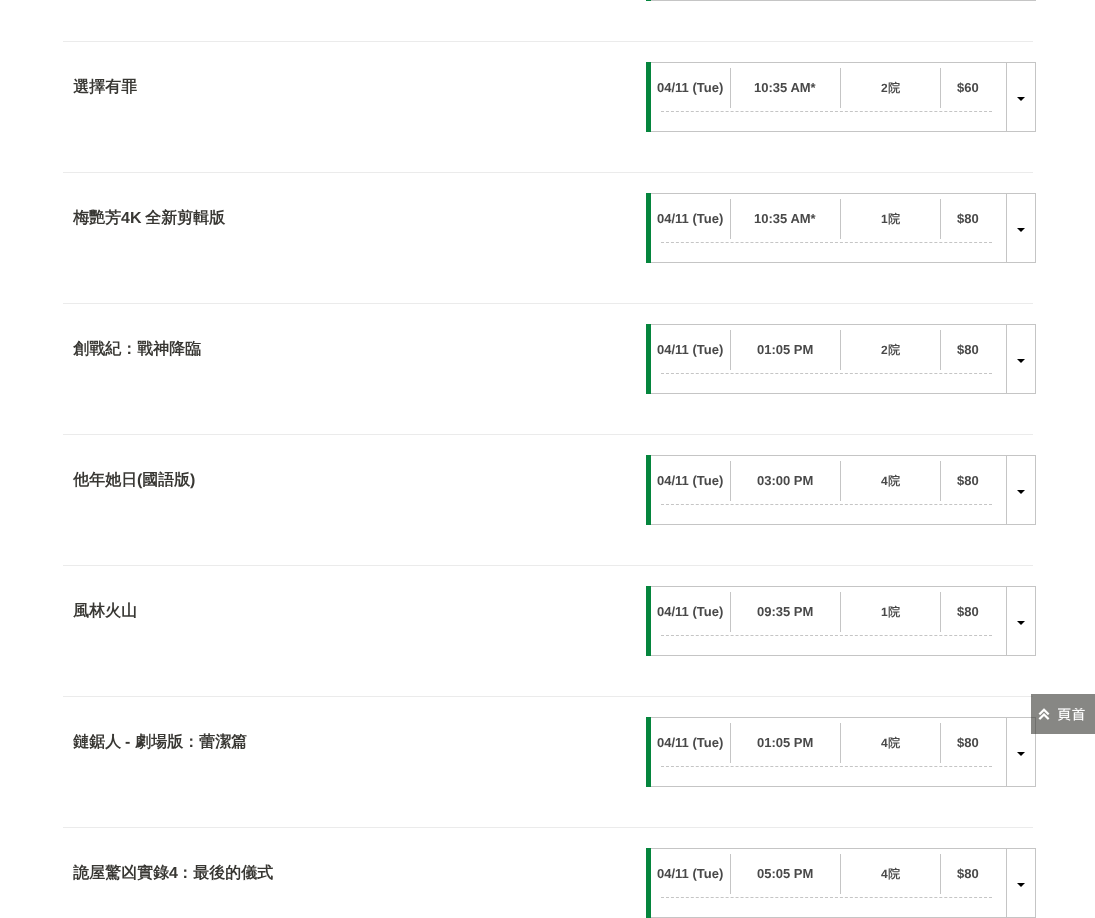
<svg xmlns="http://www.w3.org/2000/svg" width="1095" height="918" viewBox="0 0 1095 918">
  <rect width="100%" height="100%" fill="rgb(255,255,255)"/>
  <rect x="646" y="0" width="5" height="1" fill="rgb(5,133,61)"/>
  <rect x="651" y="0" width="355" height="1" fill="rgb(197,197,197)"/>
  <rect x="1006.5" y="-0.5" width="29" height="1" fill="none" stroke="rgb(197,197,197)"/>
  <rect x="63" y="41" width="970" height="1" fill="rgb(235,235,235)"/>
  <text x="73" y="92" font-family="WenQuanYi Zen Hei" font-size="16" font-weight="bold" fill="rgb(56,55,51)">選擇有罪</text>
  <rect x="646" y="62" width="5" height="70" fill="rgb(5,133,61)"/>
  <rect x="651" y="62" width="355" height="1" fill="rgb(197,197,197)"/>
  <rect x="651" y="131" width="355" height="1" fill="rgb(197,197,197)"/>
  <rect x="730" y="68" width="1" height="40" fill="rgb(197,197,197)"/>
  <text x="657" y="92" font-family="Liberation Sans" font-size="13" font-weight="bold" fill="rgb(73,73,73)">04/11 (Tue)</text>
  <rect x="840" y="68" width="1" height="40" fill="rgb(197,197,197)"/>
  <text x="754" y="92" font-family="Liberation Sans" font-size="13" font-weight="bold" fill="rgb(73,73,73)">10:35 AM*</text>
  <rect x="940" y="68" width="1" height="40" fill="rgb(197,197,197)"/>
  <text x="881" y="92" font-family="Liberation Sans" font-size="12" font-weight="bold" fill="rgb(73,73,73)">2</text>
  <text x="888" y="92" font-family="WenQuanYi Zen Hei" font-size="12" font-weight="bold" fill="rgb(73,73,73)">院</text>
  <text x="957" y="92" font-family="Liberation Sans" font-size="13" font-weight="bold" fill="rgb(73,73,73)">$60</text>
  <path d="M661 111.5H992" fill="none" stroke="rgb(197,197,197)" stroke-dasharray="3 1.97"/>
  <rect x="1006.5" y="62.5" width="29" height="69" fill="none" stroke="rgb(197,197,197)"/>
  <path d="M1017 97H1025L1021 101Z" fill="rgb(0,0,0)"/>
  <rect x="63" y="172" width="970" height="1" fill="rgb(235,235,235)"/>
  <text x="73" y="223" font-family="WenQuanYi Zen Hei" font-size="16" font-weight="bold" fill="rgb(56,55,51)">梅艷芳</text>
  <text x="121" y="223" font-family="Liberation Sans" font-size="16" font-weight="bold" fill="rgb(56,55,51)">4K</text>
  <text x="145" y="223" font-family="WenQuanYi Zen Hei" font-size="16" font-weight="bold" fill="rgb(56,55,51)">全新剪輯版</text>
  <rect x="646" y="193" width="5" height="70" fill="rgb(5,133,61)"/>
  <rect x="651" y="193" width="355" height="1" fill="rgb(197,197,197)"/>
  <rect x="651" y="262" width="355" height="1" fill="rgb(197,197,197)"/>
  <rect x="730" y="199" width="1" height="40" fill="rgb(197,197,197)"/>
  <text x="657" y="223" font-family="Liberation Sans" font-size="13" font-weight="bold" fill="rgb(73,73,73)">04/11 (Tue)</text>
  <rect x="840" y="199" width="1" height="40" fill="rgb(197,197,197)"/>
  <text x="754" y="223" font-family="Liberation Sans" font-size="13" font-weight="bold" fill="rgb(73,73,73)">10:35 AM*</text>
  <rect x="940" y="199" width="1" height="40" fill="rgb(197,197,197)"/>
  <text x="881" y="223" font-family="Liberation Sans" font-size="12" font-weight="bold" fill="rgb(73,73,73)">1</text>
  <text x="888" y="223" font-family="WenQuanYi Zen Hei" font-size="12" font-weight="bold" fill="rgb(73,73,73)">院</text>
  <text x="957" y="223" font-family="Liberation Sans" font-size="13" font-weight="bold" fill="rgb(73,73,73)">$80</text>
  <path d="M661 242.5H992" fill="none" stroke="rgb(197,197,197)" stroke-dasharray="3 1.97"/>
  <rect x="1006.5" y="193.5" width="29" height="69" fill="none" stroke="rgb(197,197,197)"/>
  <path d="M1017 228H1025L1021 232Z" fill="rgb(0,0,0)"/>
  <rect x="63" y="303" width="970" height="1" fill="rgb(235,235,235)"/>
  <text x="73" y="354" font-family="WenQuanYi Zen Hei" font-size="16" font-weight="bold" fill="rgb(56,55,51)">創戰紀：戰神降臨</text>
  <rect x="646" y="324" width="5" height="70" fill="rgb(5,133,61)"/>
  <rect x="651" y="324" width="355" height="1" fill="rgb(197,197,197)"/>
  <rect x="651" y="393" width="355" height="1" fill="rgb(197,197,197)"/>
  <rect x="730" y="330" width="1" height="40" fill="rgb(197,197,197)"/>
  <text x="657" y="354" font-family="Liberation Sans" font-size="13" font-weight="bold" fill="rgb(73,73,73)">04/11 (Tue)</text>
  <rect x="840" y="330" width="1" height="40" fill="rgb(197,197,197)"/>
  <text x="757" y="354" font-family="Liberation Sans" font-size="13" font-weight="bold" fill="rgb(73,73,73)">01:05 PM</text>
  <rect x="940" y="330" width="1" height="40" fill="rgb(197,197,197)"/>
  <text x="881" y="354" font-family="Liberation Sans" font-size="12" font-weight="bold" fill="rgb(73,73,73)">2</text>
  <text x="888" y="354" font-family="WenQuanYi Zen Hei" font-size="12" font-weight="bold" fill="rgb(73,73,73)">院</text>
  <text x="957" y="354" font-family="Liberation Sans" font-size="13" font-weight="bold" fill="rgb(73,73,73)">$80</text>
  <path d="M661 373.5H992" fill="none" stroke="rgb(197,197,197)" stroke-dasharray="3 1.97"/>
  <rect x="1006.5" y="324.5" width="29" height="69" fill="none" stroke="rgb(197,197,197)"/>
  <path d="M1017 359H1025L1021 363Z" fill="rgb(0,0,0)"/>
  <rect x="63" y="434" width="970" height="1" fill="rgb(235,235,235)"/>
  <text x="73" y="485" font-family="WenQuanYi Zen Hei" font-size="16" font-weight="bold" fill="rgb(56,55,51)">他年她日</text>
  <text x="137" y="485" font-family="Liberation Sans" font-size="16" font-weight="bold" fill="rgb(56,55,51)">(</text>
  <text x="142" y="485" font-family="WenQuanYi Zen Hei" font-size="16" font-weight="bold" fill="rgb(56,55,51)">國語版</text>
  <text x="190" y="485" font-family="Liberation Sans" font-size="16" font-weight="bold" fill="rgb(56,55,51)">)</text>
  <rect x="646" y="455" width="5" height="70" fill="rgb(5,133,61)"/>
  <rect x="651" y="455" width="355" height="1" fill="rgb(197,197,197)"/>
  <rect x="651" y="524" width="355" height="1" fill="rgb(197,197,197)"/>
  <rect x="730" y="461" width="1" height="40" fill="rgb(197,197,197)"/>
  <text x="657" y="485" font-family="Liberation Sans" font-size="13" font-weight="bold" fill="rgb(73,73,73)">04/11 (Tue)</text>
  <rect x="840" y="461" width="1" height="40" fill="rgb(197,197,197)"/>
  <text x="757" y="485" font-family="Liberation Sans" font-size="13" font-weight="bold" fill="rgb(73,73,73)">03:00 PM</text>
  <rect x="940" y="461" width="1" height="40" fill="rgb(197,197,197)"/>
  <text x="881" y="485" font-family="Liberation Sans" font-size="12" font-weight="bold" fill="rgb(73,73,73)">4</text>
  <text x="888" y="485" font-family="WenQuanYi Zen Hei" font-size="12" font-weight="bold" fill="rgb(73,73,73)">院</text>
  <text x="957" y="485" font-family="Liberation Sans" font-size="13" font-weight="bold" fill="rgb(73,73,73)">$80</text>
  <path d="M661 504.5H992" fill="none" stroke="rgb(197,197,197)" stroke-dasharray="3 1.97"/>
  <rect x="1006.5" y="455.5" width="29" height="69" fill="none" stroke="rgb(197,197,197)"/>
  <path d="M1017 490H1025L1021 494Z" fill="rgb(0,0,0)"/>
  <rect x="63" y="565" width="970" height="1" fill="rgb(235,235,235)"/>
  <text x="73" y="616" font-family="WenQuanYi Zen Hei" font-size="16" font-weight="bold" fill="rgb(56,55,51)">風林火山</text>
  <rect x="646" y="586" width="5" height="70" fill="rgb(5,133,61)"/>
  <rect x="651" y="586" width="355" height="1" fill="rgb(197,197,197)"/>
  <rect x="651" y="655" width="355" height="1" fill="rgb(197,197,197)"/>
  <rect x="730" y="592" width="1" height="40" fill="rgb(197,197,197)"/>
  <text x="657" y="616" font-family="Liberation Sans" font-size="13" font-weight="bold" fill="rgb(73,73,73)">04/11 (Tue)</text>
  <rect x="840" y="592" width="1" height="40" fill="rgb(197,197,197)"/>
  <text x="757" y="616" font-family="Liberation Sans" font-size="13" font-weight="bold" fill="rgb(73,73,73)">09:35 PM</text>
  <rect x="940" y="592" width="1" height="40" fill="rgb(197,197,197)"/>
  <text x="881" y="616" font-family="Liberation Sans" font-size="12" font-weight="bold" fill="rgb(73,73,73)">1</text>
  <text x="888" y="616" font-family="WenQuanYi Zen Hei" font-size="12" font-weight="bold" fill="rgb(73,73,73)">院</text>
  <text x="957" y="616" font-family="Liberation Sans" font-size="13" font-weight="bold" fill="rgb(73,73,73)">$80</text>
  <path d="M661 635.5H992" fill="none" stroke="rgb(197,197,197)" stroke-dasharray="3 1.97"/>
  <rect x="1006.5" y="586.5" width="29" height="69" fill="none" stroke="rgb(197,197,197)"/>
  <path d="M1017 621H1025L1021 625Z" fill="rgb(0,0,0)"/>
  <rect x="63" y="696" width="970" height="1" fill="rgb(235,235,235)"/>
  <text x="73" y="747" font-family="WenQuanYi Zen Hei" font-size="16" font-weight="bold" fill="rgb(56,55,51)">鏈鋸人</text>
  <text x="125" y="747" font-family="Liberation Sans" font-size="16" font-weight="bold" fill="rgb(56,55,51)">-</text>
  <text x="135" y="747" font-family="WenQuanYi Zen Hei" font-size="16" font-weight="bold" fill="rgb(56,55,51)">劇場版：蕾潔篇</text>
  <rect x="646" y="717" width="5" height="70" fill="rgb(5,133,61)"/>
  <rect x="651" y="717" width="355" height="1" fill="rgb(197,197,197)"/>
  <rect x="651" y="786" width="355" height="1" fill="rgb(197,197,197)"/>
  <rect x="730" y="723" width="1" height="40" fill="rgb(197,197,197)"/>
  <text x="657" y="747" font-family="Liberation Sans" font-size="13" font-weight="bold" fill="rgb(73,73,73)">04/11 (Tue)</text>
  <rect x="840" y="723" width="1" height="40" fill="rgb(197,197,197)"/>
  <text x="757" y="747" font-family="Liberation Sans" font-size="13" font-weight="bold" fill="rgb(73,73,73)">01:05 PM</text>
  <rect x="940" y="723" width="1" height="40" fill="rgb(197,197,197)"/>
  <text x="881" y="747" font-family="Liberation Sans" font-size="12" font-weight="bold" fill="rgb(73,73,73)">4</text>
  <text x="888" y="747" font-family="WenQuanYi Zen Hei" font-size="12" font-weight="bold" fill="rgb(73,73,73)">院</text>
  <text x="957" y="747" font-family="Liberation Sans" font-size="13" font-weight="bold" fill="rgb(73,73,73)">$80</text>
  <path d="M661 766.5H992" fill="none" stroke="rgb(197,197,197)" stroke-dasharray="3 1.97"/>
  <rect x="1006.5" y="717.5" width="29" height="69" fill="none" stroke="rgb(197,197,197)"/>
  <path d="M1017 752H1025L1021 756Z" fill="rgb(0,0,0)"/>
  <rect x="63" y="827" width="970" height="1" fill="rgb(235,235,235)"/>
  <text x="73" y="878" font-family="WenQuanYi Zen Hei" font-size="16" font-weight="bold" fill="rgb(56,55,51)">詭屋驚凶實錄</text>
  <text x="169" y="878" font-family="Liberation Sans" font-size="16" font-weight="bold" fill="rgb(56,55,51)">4</text>
  <text x="177" y="878" font-family="WenQuanYi Zen Hei" font-size="16" font-weight="bold" fill="rgb(56,55,51)">：最後的儀式</text>
  <rect x="646" y="848" width="5" height="70" fill="rgb(5,133,61)"/>
  <rect x="651" y="848" width="355" height="1" fill="rgb(197,197,197)"/>
  <rect x="651" y="917" width="355" height="1" fill="rgb(197,197,197)"/>
  <rect x="730" y="854" width="1" height="40" fill="rgb(197,197,197)"/>
  <text x="657" y="878" font-family="Liberation Sans" font-size="13" font-weight="bold" fill="rgb(73,73,73)">04/11 (Tue)</text>
  <rect x="840" y="854" width="1" height="40" fill="rgb(197,197,197)"/>
  <text x="757" y="878" font-family="Liberation Sans" font-size="13" font-weight="bold" fill="rgb(73,73,73)">05:05 PM</text>
  <rect x="940" y="854" width="1" height="40" fill="rgb(197,197,197)"/>
  <text x="881" y="878" font-family="Liberation Sans" font-size="12" font-weight="bold" fill="rgb(73,73,73)">4</text>
  <text x="888" y="878" font-family="WenQuanYi Zen Hei" font-size="12" font-weight="bold" fill="rgb(73,73,73)">院</text>
  <text x="957" y="878" font-family="Liberation Sans" font-size="13" font-weight="bold" fill="rgb(73,73,73)">$80</text>
  <path d="M661 897.5H992" fill="none" stroke="rgb(197,197,197)" stroke-dasharray="3 1.97"/>
  <rect x="1006.5" y="848.5" width="29" height="69" fill="none" stroke="rgb(197,197,197)"/>
  <path d="M1017 883H1025L1021 887Z" fill="rgb(0,0,0)"/>
  <image x="1031" y="694" width="64" height="40" href="pic1.png"/>
</svg>
